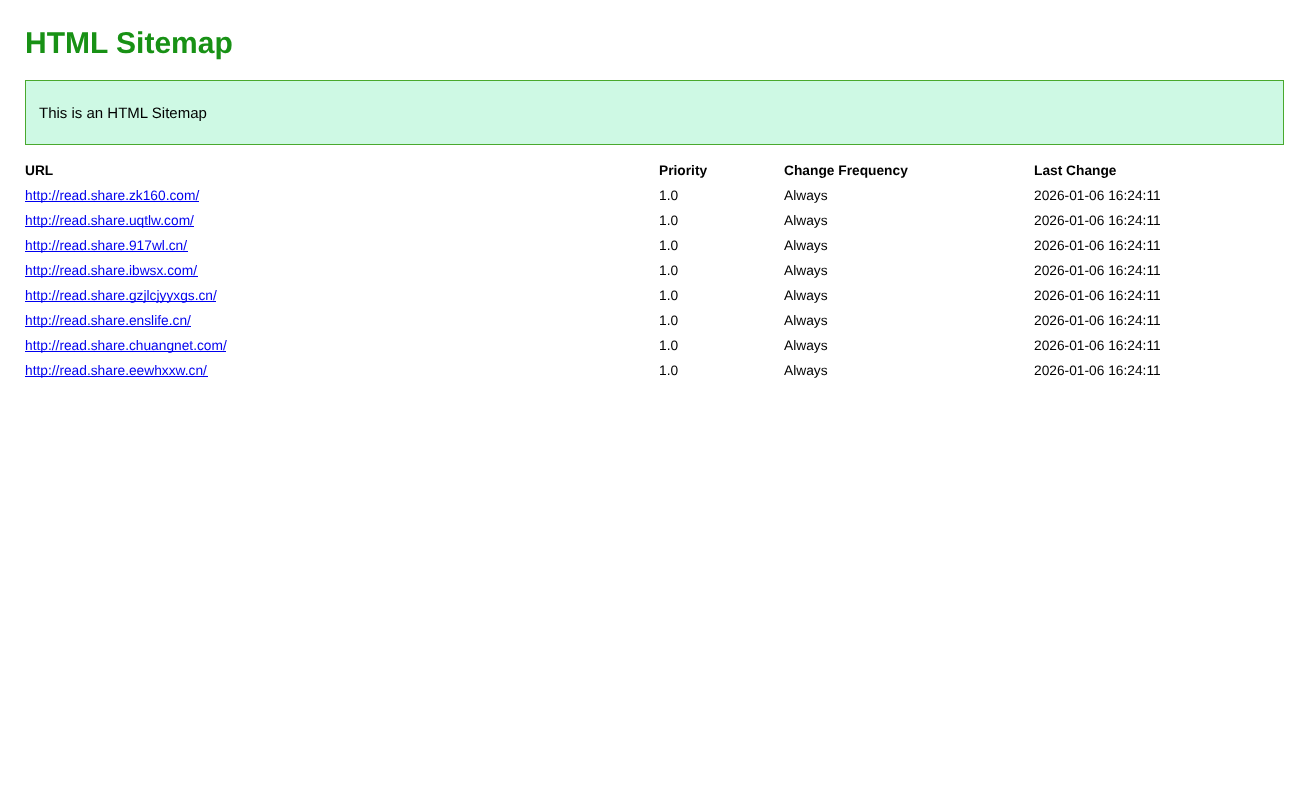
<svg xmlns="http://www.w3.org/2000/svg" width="1308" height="796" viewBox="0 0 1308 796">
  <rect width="100%" height="100%" fill="rgb(255,255,255)"/>
  <text x="25" y="53" font-family="Liberation Sans" font-size="30" font-weight="bold" fill="rgb(24,145,21)">HTML Sitemap</text>
  <rect x="25.5" y="80.5" width="1258" height="64" fill="rgb(206,249,228)" stroke="rgb(73,169,46)"/>
  <text x="39" y="118" font-family="Liberation Sans" font-size="15" fill="rgb(0,0,0)">This is an HTML Sitemap</text>
  <g font-family="Liberation Sans" font-size="13.75" font-weight="bold" fill="rgb(0,0,0)">
    <text x="25" y="175">URL</text>
    <text x="659" y="175">Priority</text>
    <text x="784" y="175">Change Frequency</text>
    <text x="1034" y="175">Last Change</text>
  </g>
  <rect x="25" y="201" width="174" height="1" fill="rgb(0,0,238)"/>
  <text x="25" y="200" font-family="Liberation Sans" font-size="13.75" fill="rgb(0,0,238)">http://read.share.zk160.com/</text>
  <g font-family="Liberation Sans" font-size="13.75" fill="rgb(0,0,0)">
    <text x="659" y="200">1.0</text>
    <text x="784" y="200">Always</text>
    <text x="1034" y="200">2026-01-06 16:24:11</text>
  </g>
  <rect x="25" y="226" width="169" height="1" fill="rgb(0,0,238)"/>
  <text x="25" y="225" font-family="Liberation Sans" font-size="13.75" fill="rgb(0,0,238)">http://read.share.uqtlw.com/</text>
  <g font-family="Liberation Sans" font-size="13.75" fill="rgb(0,0,0)">
    <text x="659" y="225">1.0</text>
    <text x="784" y="225">Always</text>
    <text x="1034" y="225">2026-01-06 16:24:11</text>
  </g>
  <rect x="25" y="251" width="163" height="1" fill="rgb(0,0,238)"/>
  <text x="25" y="250" font-family="Liberation Sans" font-size="13.75" fill="rgb(0,0,238)">http://read.share.917wl.cn/</text>
  <g font-family="Liberation Sans" font-size="13.75" fill="rgb(0,0,0)">
    <text x="659" y="250">1.0</text>
    <text x="784" y="250">Always</text>
    <text x="1034" y="250">2026-01-06 16:24:11</text>
  </g>
  <rect x="25" y="276" width="173" height="1" fill="rgb(0,0,238)"/>
  <text x="25" y="275" font-family="Liberation Sans" font-size="13.75" fill="rgb(0,0,238)">http://read.share.ibwsx.com/</text>
  <g font-family="Liberation Sans" font-size="13.75" fill="rgb(0,0,0)">
    <text x="659" y="275">1.0</text>
    <text x="784" y="275">Always</text>
    <text x="1034" y="275">2026-01-06 16:24:11</text>
  </g>
  <rect x="25" y="301" width="191" height="1" fill="rgb(0,0,238)"/>
  <text x="25" y="300" font-family="Liberation Sans" font-size="13.75" fill="rgb(0,0,238)">http://read.share.gzjlcjyyxgs.cn/</text>
  <g font-family="Liberation Sans" font-size="13.75" fill="rgb(0,0,0)">
    <text x="659" y="300">1.0</text>
    <text x="784" y="300">Always</text>
    <text x="1034" y="300">2026-01-06 16:24:11</text>
  </g>
  <rect x="25" y="326" width="166" height="1" fill="rgb(0,0,238)"/>
  <text x="25" y="325" font-family="Liberation Sans" font-size="13.75" fill="rgb(0,0,238)">http://read.share.enslife.cn/</text>
  <g font-family="Liberation Sans" font-size="13.75" fill="rgb(0,0,0)">
    <text x="659" y="325">1.0</text>
    <text x="784" y="325">Always</text>
    <text x="1034" y="325">2026-01-06 16:24:11</text>
  </g>
  <rect x="25" y="351" width="201" height="1" fill="rgb(0,0,238)"/>
  <text x="25" y="350" font-family="Liberation Sans" font-size="13.75" fill="rgb(0,0,238)">http://read.share.chuangnet.com/</text>
  <g font-family="Liberation Sans" font-size="13.75" fill="rgb(0,0,0)">
    <text x="659" y="350">1.0</text>
    <text x="784" y="350">Always</text>
    <text x="1034" y="350">2026-01-06 16:24:11</text>
  </g>
  <rect x="25" y="376" width="183" height="1" fill="rgb(0,0,238)"/>
  <text x="25" y="375" font-family="Liberation Sans" font-size="13.75" fill="rgb(0,0,238)">http://read.share.eewhxxw.cn/</text>
  <g font-family="Liberation Sans" font-size="13.75" fill="rgb(0,0,0)">
    <text x="659" y="375">1.0</text>
    <text x="784" y="375">Always</text>
    <text x="1034" y="375">2026-01-06 16:24:11</text>
  </g>
</svg>
